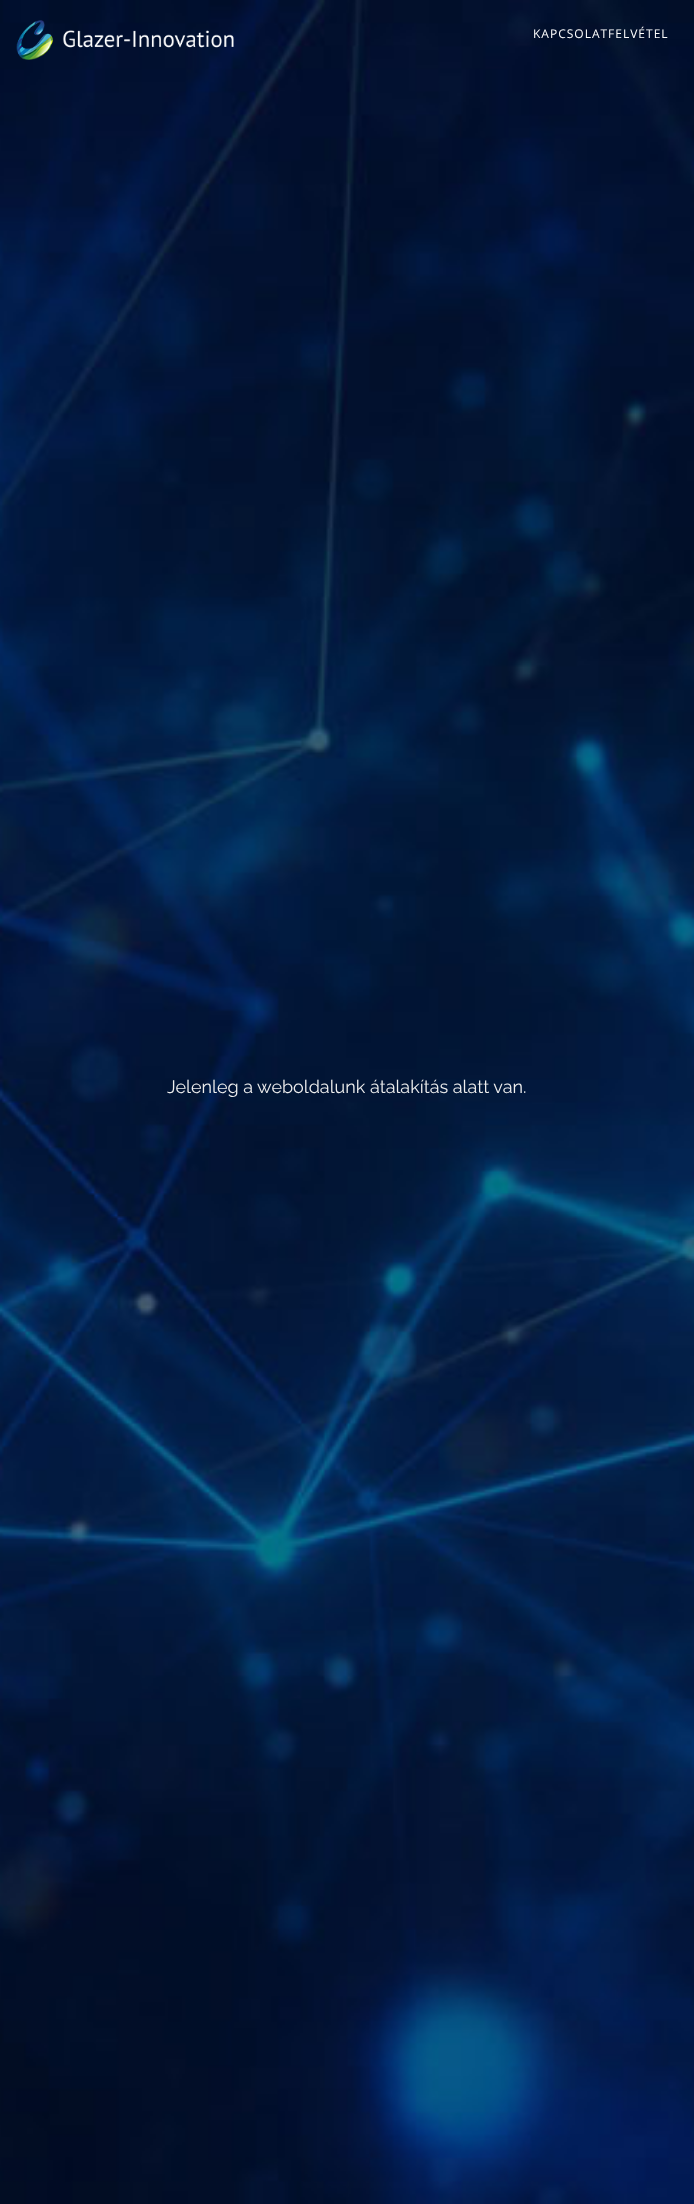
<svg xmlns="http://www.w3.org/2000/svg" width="694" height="2204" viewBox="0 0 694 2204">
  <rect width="100%" height="100%" fill="rgb(255,255,255)"/>
  <image x="0" y="0" width="694" height="2204" href="pic2.png"/>
  <image x="16" y="20" width="218" height="40" href="pic1.png"/>
  <text x="533" y="38" font-family="Open Sans" font-size="12" letter-spacing="1" fill="rgb(255,255,255)">KAPCSOLATFELVÉTEL</text>
  <text x="167" y="1093" font-family="Raleway" font-size="18" fill="rgb(238,238,238)">Jelenleg a weboldalunk átalakítás alatt van.</text>
</svg>
